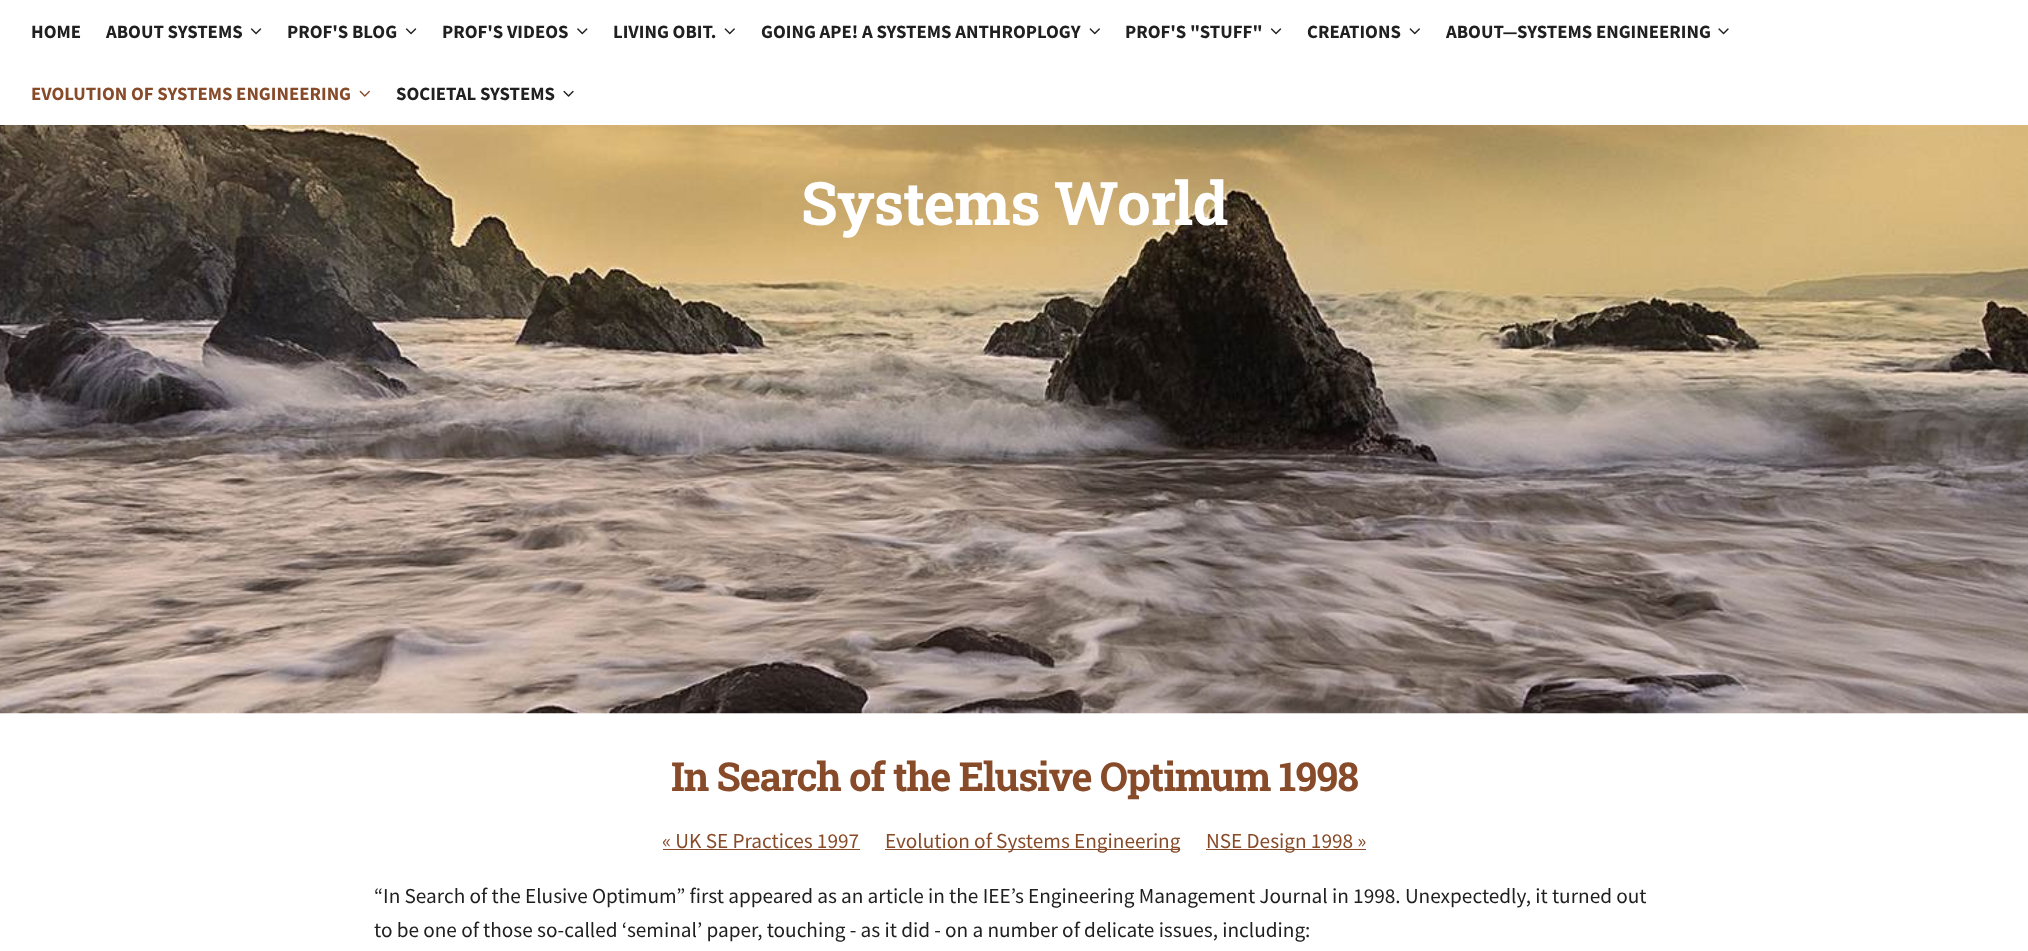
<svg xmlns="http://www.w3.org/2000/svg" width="2028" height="951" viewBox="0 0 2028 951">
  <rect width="100%" height="100%" fill="rgb(255,255,255)"/>
  <g font-family="Source Sans Pro" font-size="18.75" font-weight="bold" fill="rgb(32,32,32)">
    <text x="31" y="38">HOME</text>
    <text x="106" y="38">ABOUT SYSTEMS</text>
  </g>
  <image x="250" y="28" width="12" height="7" href="pic1.png"/>
  <text x="287" y="38" font-family="Source Sans Pro" font-size="18.75" font-weight="bold" fill="rgb(32,32,32)">PROF'S BLOG</text>
  <image x="405" y="28" width="12" height="7" href="pic1.png"/>
  <text x="442" y="38" font-family="Source Sans Pro" font-size="18.75" font-weight="bold" fill="rgb(32,32,32)">PROF'S VIDEOS</text>
  <image x="577" y="28" width="11" height="7" href="pic2.png"/>
  <text x="613" y="38" font-family="Source Sans Pro" font-size="18.75" font-weight="bold" fill="rgb(32,32,32)">LIVING OBIT.</text>
  <image x="724" y="28" width="11" height="7" href="pic3.png"/>
  <text x="761" y="38" font-family="Source Sans Pro" font-size="18.75" font-weight="bold" fill="rgb(32,32,32)">GOING APE! A SYSTEMS ANTHROPLOGY</text>
  <image x="1089" y="28" width="11" height="7" href="pic3.png"/>
  <text x="1125" y="38" font-family="Source Sans Pro" font-size="18.75" font-weight="bold" fill="rgb(32,32,32)">PROF'S "STUFF"</text>
  <image x="1270" y="28" width="12" height="7" href="pic1.png"/>
  <text x="1307" y="38" font-family="Source Sans Pro" font-size="18.75" font-weight="bold" fill="rgb(32,32,32)">CREATIONS</text>
  <image x="1409" y="28" width="11" height="7" href="pic3.png"/>
  <text x="1446" y="38" font-family="Source Sans Pro" font-size="18.75" font-weight="bold" fill="rgb(32,32,32)">ABOUT—SYSTEMS ENGINEERING</text>
  <image x="1718" y="28" width="11" height="7" href="pic4.png"/>
  <text x="31" y="100" font-family="Source Sans Pro" font-size="18.75" font-weight="bold" fill="rgb(135,75,42)">EVOLUTION OF SYSTEMS ENGINEERING</text>
  <image x="359" y="90" width="11" height="7" href="pic5.png"/>
  <text x="396" y="100" font-family="Source Sans Pro" font-size="18.75" font-weight="bold" fill="rgb(32,32,32)">SOCIETAL SYSTEMS</text>
  <image x="563" y="90" width="11" height="7" href="pic6.png"/>
  <image x="0" y="125" width="2028" height="589" href="pic7.png"/>
  <text x="801" y="225" font-family="Roboto Slab" font-size="60" font-weight="bold" letter-spacing="-0.6" fill="rgb(255,255,255)">Systems World</text>
  <text x="671" y="791" font-family="Roboto Slab" font-size="40" font-weight="bold" letter-spacing="-1.25" fill="rgb(135,75,42)">In Search of the Elusive Optimum 1998</text>
  <text x="662" y="848" font-family="Source Sans Pro" font-size="21.25" fill="rgb(135,75,42)">« UK SE Practices 1997</text>
  <rect x="663" y="849" width="197" height="1" fill="rgb(135,75,42)"/>
  <rect x="885" y="849" width="295" height="1" fill="rgb(135,75,42)"/>
  <text x="885" y="848" font-family="Source Sans Pro" font-size="21.25" fill="rgb(135,75,42)">Evolution of Systems Engineering</text>
  <rect x="1206" y="849" width="160" height="1" fill="rgb(135,75,42)"/>
  <text x="1206" y="848" font-family="Source Sans Pro" font-size="21.25" fill="rgb(135,75,42)">NSE Design 1998 »</text>
  <g font-family="Source Sans Pro" font-size="21.25" fill="rgb(32,32,32)">
    <text>
      <tspan x="374" y="903">“In Search of the Elusive Optimum” first appeared as an article in the IEE’s Engineering Management Journal in 1998. Unexpectedly, it turned out</tspan>
      <tspan x="374" y="937">to be one of those so-called ‘seminal’ paper, touching - as it did - on a number of delicate issues, including:</tspan>
    </text>
  </g>
</svg>
